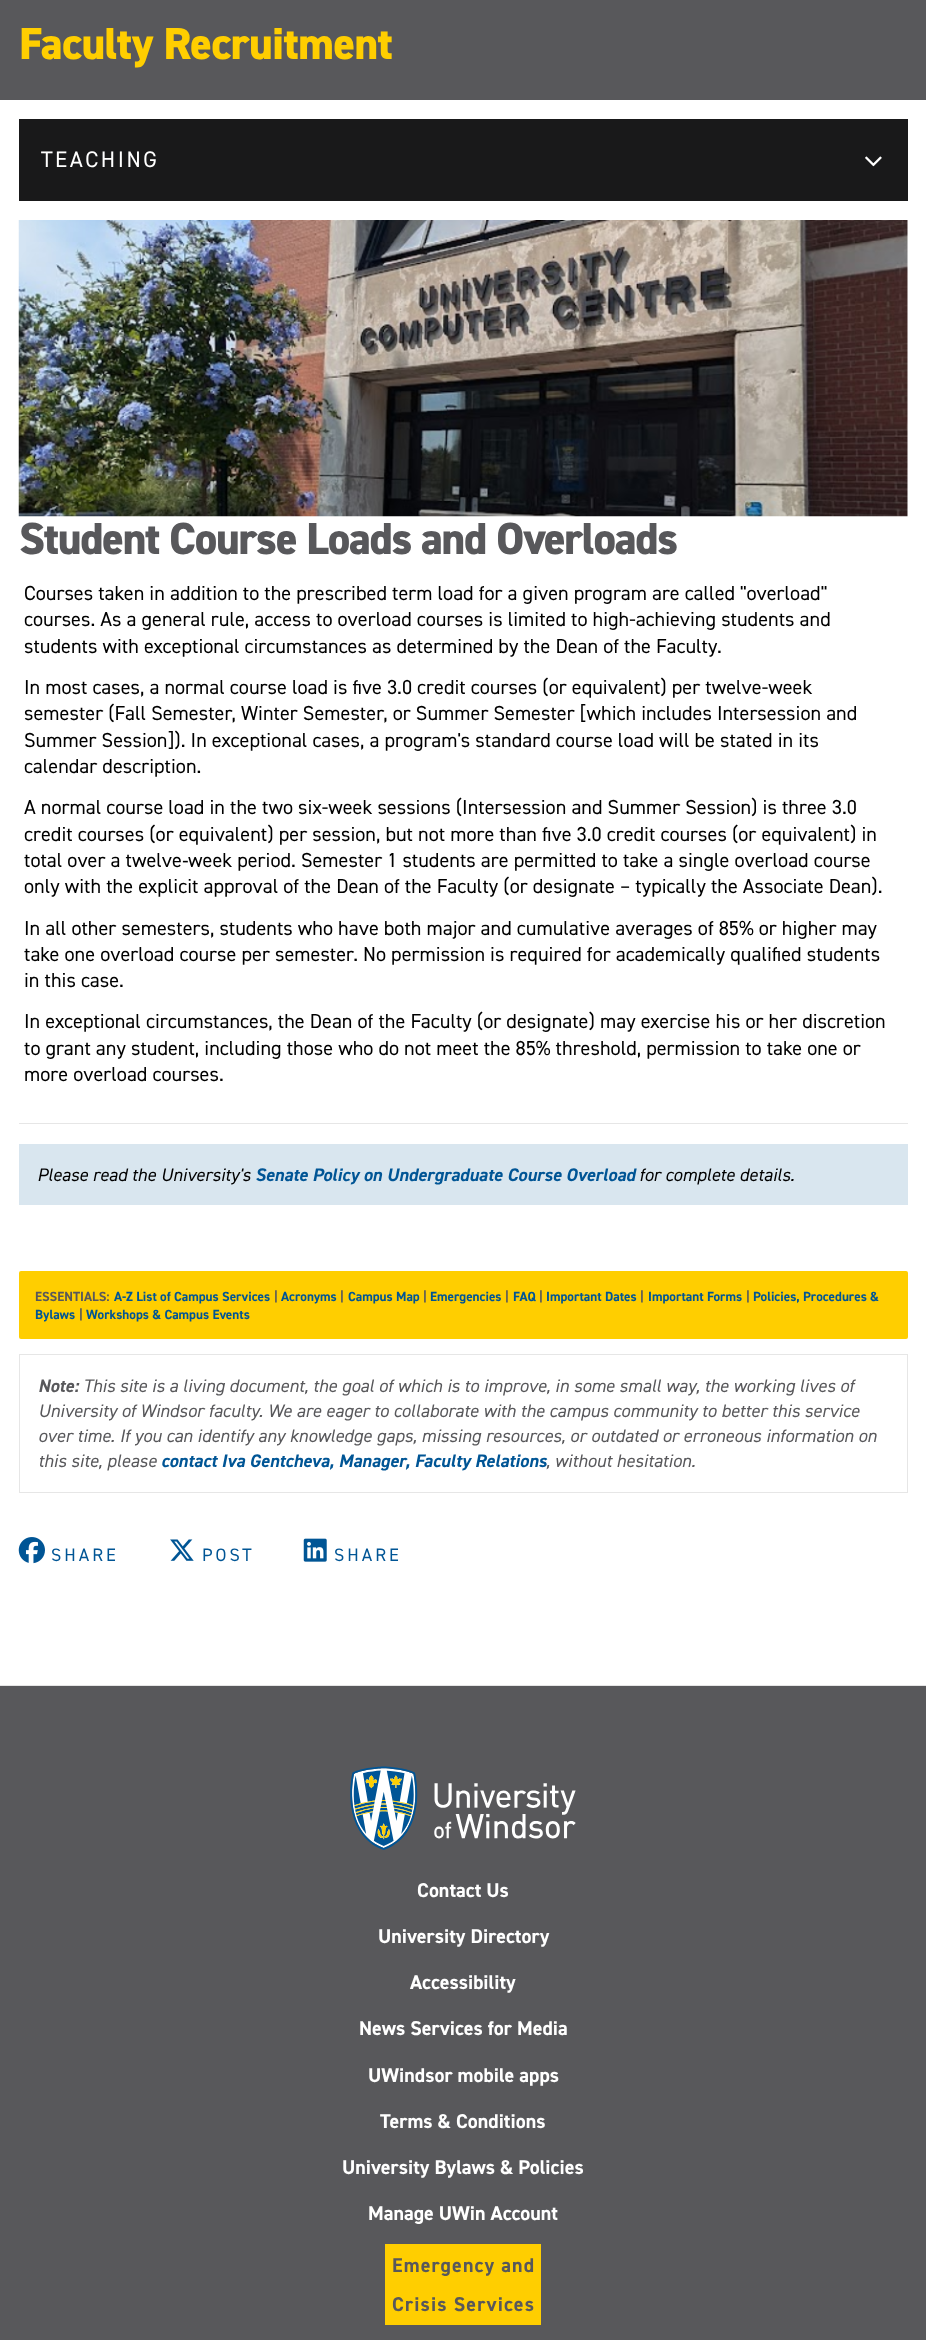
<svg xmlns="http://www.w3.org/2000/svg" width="926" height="2340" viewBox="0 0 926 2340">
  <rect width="100%" height="100%" fill="rgb(255,255,255)"/>
  <rect x="0" y="0" width="926" height="100" fill="rgb(88,88,91)"/>
  <text x="19" y="59" font-family="'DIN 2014'" font-size="45" font-weight="800" letter-spacing="-0.6" fill="rgb(255,206,0)">Faculty Recruitment</text>
  <rect x="19" y="119" width="889" height="82" fill="rgb(25,25,26)"/>
  <text x="41" y="167" font-family="'DIN 2014'" font-size="22.5" letter-spacing="2.5" fill="rgb(255,255,255)">TEACHING</text>
  <image x="865" y="156" width="17" height="11" href="pic1.png"/>
  <image x="18" y="220" width="890" height="297" href="pic2.png"/>
  <text x="19" y="554" font-family="'DIN 2014'" font-size="45" font-weight="800" letter-spacing="-1.25" fill="rgb(88,88,91)">Student Course Loads and Overloads</text>
  <g font-family="'DIN 2014'" font-size="20.25" fill="rgb(0,0,0)">
    <text>
      <tspan x="24" y="600">Courses taken in addition to the prescribed term load for a given program are called "overload"</tspan>
      <tspan x="24" y="626">courses. As a general rule, access to overload courses is limited to high-achieving students and</tspan>
      <tspan x="24" y="653">students with exceptional circumstances as determined by the Dean of the Faculty.</tspan>
    </text>
    <text>
      <tspan x="24" y="694">In most cases, a normal course load is five 3.0 credit courses (or equivalent) per twelve-week</tspan>
      <tspan x="24" y="720">semester (Fall Semester, Winter Semester, or Summer Semester [which includes Intersession and</tspan>
      <tspan x="24" y="747">Summer Session]). In exceptional cases, a program's standard course load will be stated in its</tspan>
      <tspan x="24" y="773">calendar description.</tspan>
    </text>
    <text>
      <tspan x="24" y="814">A normal course load in the two six-week sessions (Intersession and Summer Session) is three 3.0</tspan>
      <tspan x="24" y="841">credit courses (or equivalent) per session, but not more than five 3.0 credit courses (or equivalent) in</tspan>
      <tspan x="24" y="867">total over a twelve</tspan>
    </text>
  </g>
  <text x="182" y="867" font-family="Liberation Sans" font-size="20.25" fill="rgb(0,0,0)">‐</text>
  <g font-family="'DIN 2014'" font-size="20.25" fill="rgb(0,0,0)">
    <text x="188" y="867">week period. Semester 1 students are permitted to take a single overload course</text>
    <text x="24" y="893">only with the explicit approval of the Dean of the Faculty (or designate – typically the Associate Dean).</text>
    <text>
      <tspan x="24" y="935">In all other semesters, students who have both major and cumulative averages of 85% or higher may</tspan>
      <tspan x="24" y="961">take one overload course per semester. No permission is required for academically qualified students</tspan>
      <tspan x="24" y="987">in this case.</tspan>
    </text>
    <text>
      <tspan x="24" y="1028">In exceptional circumstances, the Dean of the Faculty (or designate) may exercise his or her discretion</tspan>
      <tspan x="24" y="1055">to grant any student, including those who do not meet the 85% threshold, permission to take one or</tspan>
      <tspan x="24" y="1081">more overload courses.</tspan>
    </text>
  </g>
  <rect x="19" y="1123" width="889" height="1" fill="rgb(230,230,230)"/>
  <rect x="19" y="1144" width="889" height="61" fill="rgb(217,230,239)"/>
  <text x="37" y="1181" font-family="'DIN 2014'" font-size="18.25" font-style="italic" fill="rgb(0,0,0)">Please read the University's</text>
  <text x="255" y="1181" font-family="'DIN 2014'" font-size="18.25" font-weight="bold" font-style="italic" fill="rgb(0,85,149)">Senate Policy on Undergraduate Course Overload</text>
  <text x="639" y="1181" font-family="'DIN 2014'" font-size="18.25" font-style="italic" fill="rgb(0,0,0)">for complete details.</text>
  <rect x="19" y="1271" width="889" height="68" rx="2" fill="rgb(255,206,0)"/>
  <text x="35" y="1301" font-family="'DIN 2014'" font-size="13.25" font-weight="bold" fill="rgb(88,88,91)">ESSENTIALS:</text>
  <text x="114" y="1301" font-family="'DIN 2014'" font-size="13.25" font-weight="bold" fill="rgb(0,85,149)">A-Z List of Campus Services</text>
  <text x="274" y="1301" font-family="'DIN 2014'" font-size="13.25" font-weight="bold" fill="rgb(88,88,91)">|</text>
  <text x="281" y="1301" font-family="'DIN 2014'" font-size="13.25" font-weight="bold" fill="rgb(0,85,149)">Acronyms</text>
  <text x="340" y="1301" font-family="'DIN 2014'" font-size="13.25" font-weight="bold" fill="rgb(88,88,91)">|</text>
  <text x="348" y="1301" font-family="'DIN 2014'" font-size="13.25" font-weight="bold" fill="rgb(0,85,149)">Campus Map</text>
  <text x="423" y="1301" font-family="'DIN 2014'" font-size="13.25" font-weight="bold" fill="rgb(88,88,91)">|</text>
  <text x="430" y="1301" font-family="'DIN 2014'" font-size="13.25" font-weight="bold" fill="rgb(0,85,149)">Emergencies</text>
  <text x="505" y="1301" font-family="'DIN 2014'" font-size="13.25" font-weight="bold" fill="rgb(88,88,91)">|</text>
  <text x="513" y="1301" font-family="'DIN 2014'" font-size="13.25" font-weight="bold" fill="rgb(0,85,149)">FAQ</text>
  <text x="539" y="1301" font-family="'DIN 2014'" font-size="13.25" font-weight="bold" fill="rgb(88,88,91)">|</text>
  <text x="546" y="1301" font-family="'DIN 2014'" font-size="13.25" font-weight="bold" fill="rgb(0,85,149)">Important Dates</text>
  <text x="640" y="1301" font-family="'DIN 2014'" font-size="13.25" font-weight="bold" fill="rgb(88,88,91)">|</text>
  <text x="648" y="1301" font-family="'DIN 2014'" font-size="13.25" font-weight="bold" fill="rgb(0,85,149)">Important Forms</text>
  <text x="746" y="1301" font-family="'DIN 2014'" font-size="13.25" font-weight="bold" fill="rgb(88,88,91)">|</text>
  <g font-family="'DIN 2014'" font-size="13.25" font-weight="bold" fill="rgb(0,85,149)">
    <text x="753" y="1301">Policies, Procedures &amp;</text>
    <text x="35" y="1319">Bylaws</text>
  </g>
  <text x="79" y="1319" font-family="'DIN 2014'" font-size="13.25" font-weight="bold" fill="rgb(88,88,91)">|</text>
  <text x="86" y="1319" font-family="'DIN 2014'" font-size="13.25" font-weight="bold" fill="rgb(0,85,149)">Workshops &amp; Campus Events</text>
  <rect x="19.5" y="1354.5" width="888" height="138" fill="none" stroke="rgb(230,230,230)"/>
  <text x="38" y="1392" font-family="'DIN 2014'" font-size="18.25" font-weight="bold" font-style="italic" fill="rgb(88,88,91)">Note:</text>
  <g font-family="'DIN 2014'" font-size="18.25" font-style="italic" fill="rgb(88,88,91)">
    <text x="83" y="1392">This site is a living document, the goal of which is to improve, in some small way, the working lives of</text>
    <text>
      <tspan x="38" y="1417">University of Windsor faculty. We are eager to collaborate with the campus community to better this service</tspan>
      <tspan x="38" y="1442">over time. If you can identify any knowledge gaps, missing resources, or outdated or erroneous information on</tspan>
      <tspan x="38" y="1467">this site, please</tspan>
    </text>
  </g>
  <text x="161" y="1467" font-family="'DIN 2014'" font-size="18.25" font-weight="bold" font-style="italic" fill="rgb(0,85,149)">contact Iva Gentcheva, Manager, Faculty Relations</text>
  <text x="546" y="1467" font-family="'DIN 2014'" font-size="18.25" font-style="italic" fill="rgb(88,88,91)">, without hesitation.</text>
  <image x="18" y="1537" width="27" height="27" href="pic3.png"/>
  <text x="51" y="1561" font-family="'DIN 2014'" font-size="18" letter-spacing="3" fill="rgb(0,85,149)">SHARE</text>
  <image x="170" y="1539" width="24" height="22" href="pic4.png"/>
  <text x="202" y="1561" font-family="'DIN 2014'" font-size="18" letter-spacing="3" fill="rgb(0,85,149)">POST</text>
  <image x="303" y="1538" width="24" height="24" href="pic5.png"/>
  <text x="334" y="1561" font-family="'DIN 2014'" font-size="18" letter-spacing="3" fill="rgb(0,85,149)">SHARE</text>
  <rect x="0" y="1686" width="926" height="654" fill="rgb(88,88,91)"/>
  <rect x="0" y="1685" width="926" height="1" fill="rgb(229,229,229)"/>
  <image x="350" y="1766" width="226" height="84" href="pic6.png"/>
  <g font-family="'DIN 2014'" font-size="20" font-weight="bold" fill="rgb(255,255,255)">
    <text x="417" y="1897">Contact Us</text>
    <text x="378" y="1943">University Directory</text>
    <text x="410" y="1989">Accessibility</text>
    <text x="359" y="2035">News Services for Media</text>
    <text x="368" y="2082">UWindsor mobile apps</text>
    <text x="380" y="2128">Terms &amp; Conditions</text>
    <text x="342" y="2174">University Bylaws &amp; Policies</text>
    <text x="368" y="2220">Manage UWin Account</text>
  </g>
  <rect x="385" y="2244" width="156" height="81" fill="rgb(255,206,0)"/>
  <g font-family="'DIN 2014'" font-size="20" font-weight="bold" letter-spacing="1.1" fill="rgb(88,88,91)">
    <text>
      <tspan x="392" y="2272">Emergency and</tspan>
      <tspan x="392" y="2311">Crisis Services</tspan>
    </text>
  </g>
</svg>
